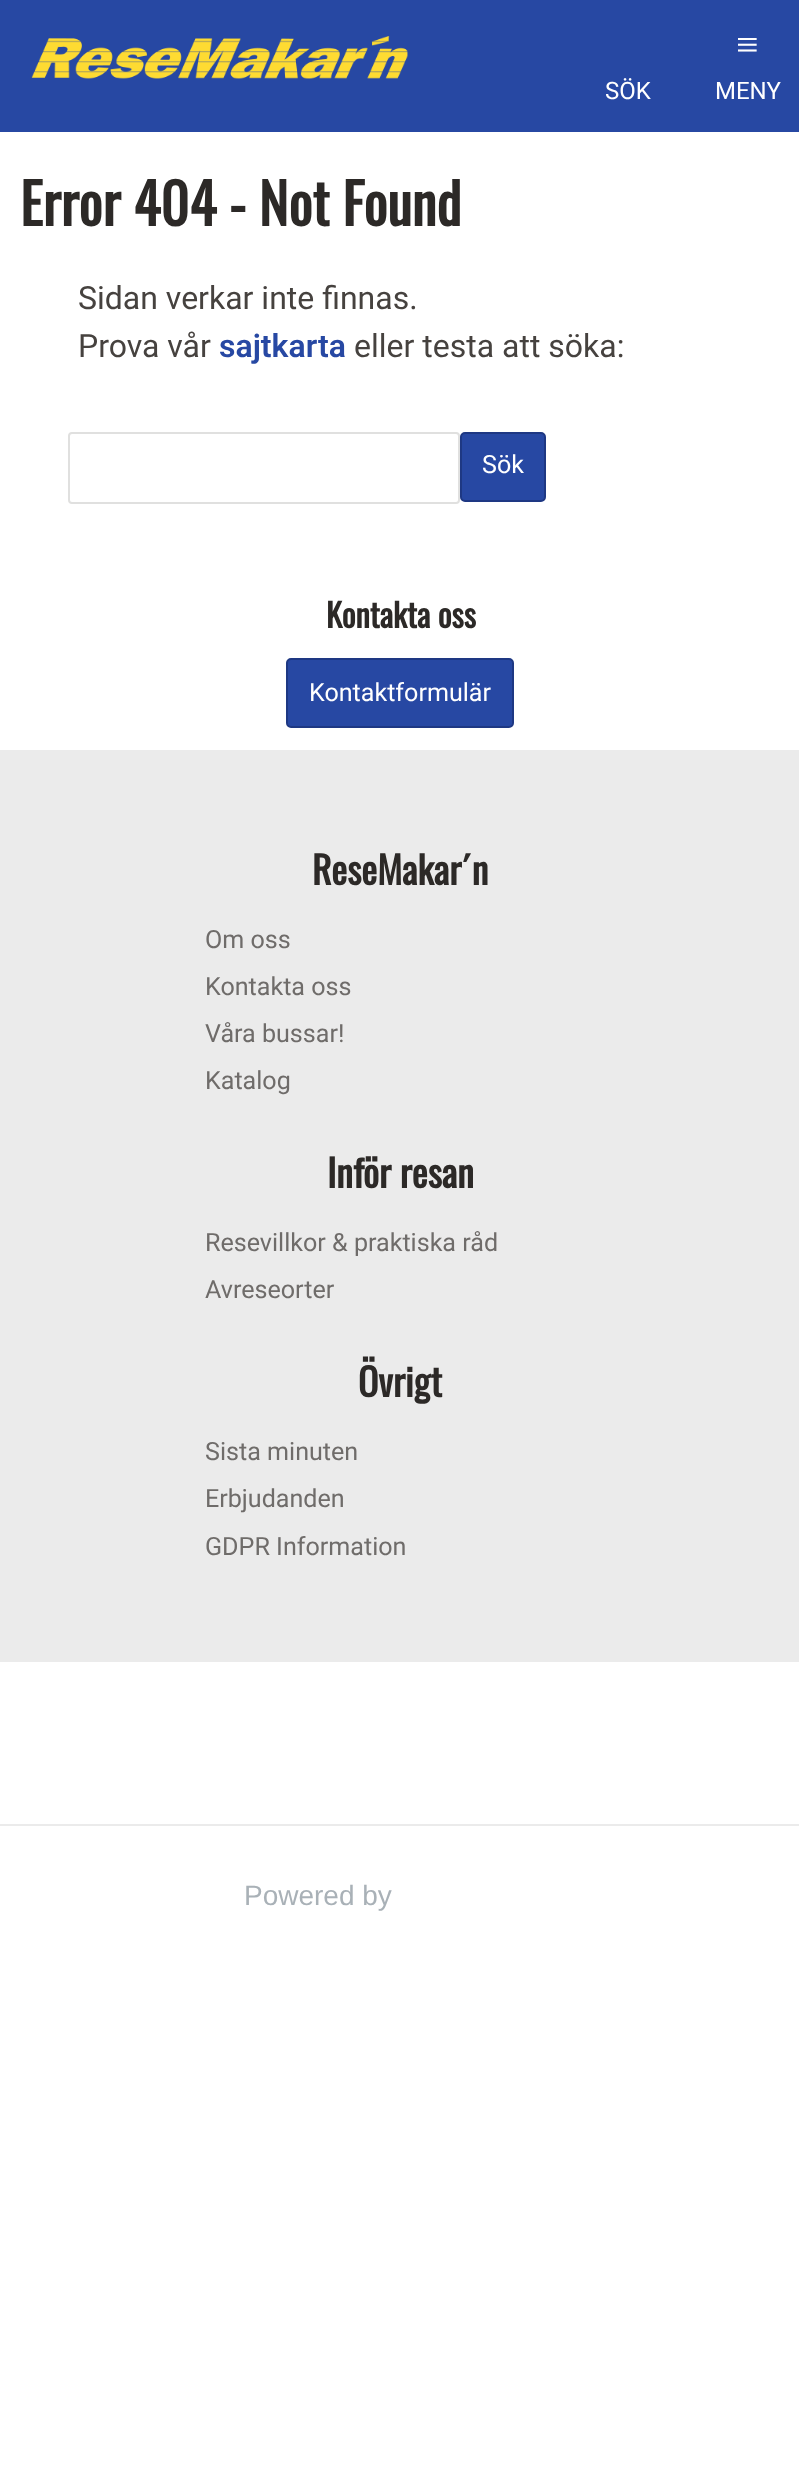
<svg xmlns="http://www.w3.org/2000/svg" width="799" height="2476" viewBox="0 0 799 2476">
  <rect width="100%" height="100%" fill="rgb(255,255,255)"/>
  <rect x="0" y="0" width="799" height="132" fill="rgb(39,72,163)"/>
  <image x="31" y="36" width="377" height="43" href="pic1.png"/>
  <text x="605" y="99" font-family="Roboto" font-size="24" fill="rgb(255,255,255)">SÖK</text>
  <text x="736" y="58" font-family="Liberation Serif" font-size="40" fill="rgb(255,255,255)">≡</text>
  <text x="715" y="99" font-family="Roboto" font-size="24" fill="rgb(255,255,255)">MENY</text>
  <text x="20" y="226" font-family="Oswald" font-size="56" font-weight="bold" fill="rgb(44,41,39)">Error 404 - Not Found</text>
  <g font-family="Roboto" font-size="32" fill="rgb(70,66,63)">
    <text>
      <tspan x="78" y="309">Sidan verkar inte finnas.</tspan>
      <tspan x="78" y="357">Prova vår</tspan>
    </text>
  </g>
  <text x="219" y="357" font-family="Roboto" font-size="32" font-weight="600" fill="rgb(39,72,163)">sajtkarta</text>
  <text x="354" y="357" font-family="Roboto" font-size="32" fill="rgb(70,66,63)">eller testa att söka:</text>
  <rect x="69" y="433" width="390" height="70" rx="3" fill="none" stroke="rgb(224,224,223)" stroke-width="2"/>
  <rect x="461" y="433" width="84" height="68" rx="4" fill="rgb(39,72,163)" stroke="rgb(30,56,131)" stroke-width="2"/>
  <text x="482" y="473" font-family="Roboto" font-size="25.1" fill="rgb(255,255,255)">Sök</text>
  <text x="326" y="628" font-family="Oswald" font-size="32.5" font-weight="bold" fill="rgb(44,41,39)">Kontakta oss</text>
  <rect x="287" y="659" width="226" height="68" rx="4" fill="rgb(39,72,163)" stroke="rgb(30,56,131)" stroke-width="2"/>
  <text x="309" y="701" font-family="Roboto" font-size="25.1" fill="rgb(255,255,255)">Kontaktformulär</text>
  <rect x="0" y="750" width="799" height="912" fill="rgb(235,235,235)"/>
  <text x="312" y="885" font-family="Oswald" font-size="37.75" font-weight="bold" fill="rgb(44,41,39)">ReseMakar´n</text>
  <g font-family="Roboto" font-size="25.1" fill="rgb(111,108,106)">
    <text>
      <tspan x="205" y="948">Om oss</tspan>
      <tspan x="205" y="995">Kontakta oss</tspan>
      <tspan x="205" y="1042">Våra bussar!</tspan>
      <tspan x="205" y="1089">Katalog</tspan>
    </text>
  </g>
  <text x="327" y="1188" font-family="Oswald" font-size="37.75" font-weight="bold" fill="rgb(44,41,39)">Inför resan</text>
  <g font-family="Roboto" font-size="25.1" fill="rgb(111,108,106)">
    <text>
      <tspan x="205" y="1251">Resevillkor &amp; praktiska råd</tspan>
      <tspan x="205" y="1298">Avreseorter</tspan>
    </text>
  </g>
  <text x="358" y="1397" font-family="Oswald" font-size="37.75" font-weight="bold" fill="rgb(44,41,39)">Övrigt</text>
  <g font-family="Roboto" font-size="25.1" fill="rgb(111,108,106)">
    <text>
      <tspan x="205" y="1460">Sista minuten</tspan>
      <tspan x="205" y="1507">Erbjudanden</tspan>
      <tspan x="205" y="1555">GDPR Information</tspan>
    </text>
  </g>
  <rect x="0" y="1824" width="799" height="2" fill="rgb(235,235,235)"/>
  <text x="244" y="1905" font-family="Liberation Sans" font-size="28" fill="rgb(169,177,183)">Powered by</text>
</svg>
